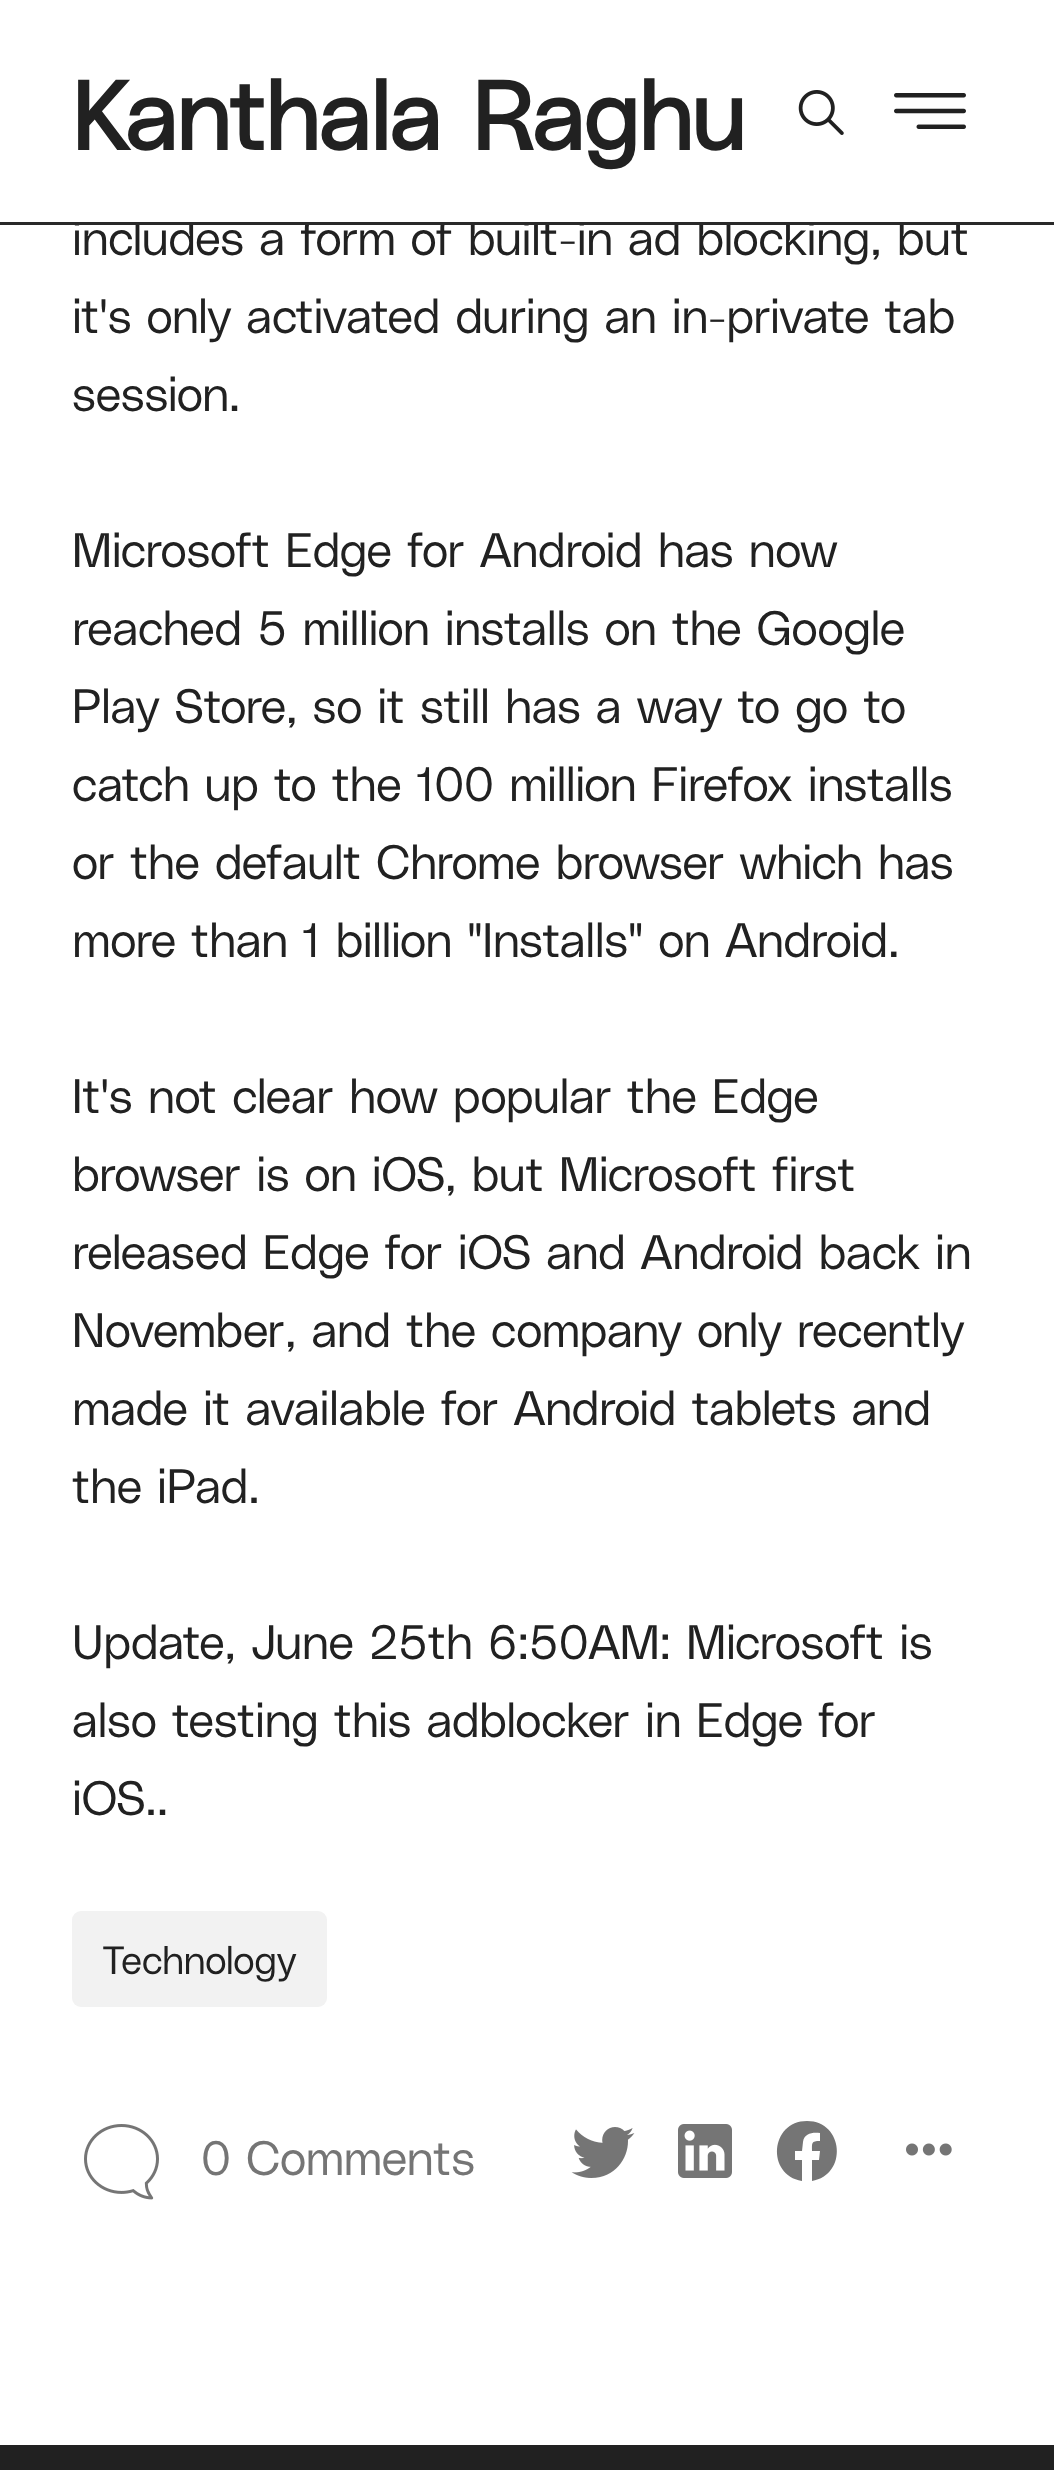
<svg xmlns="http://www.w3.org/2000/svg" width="1054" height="2470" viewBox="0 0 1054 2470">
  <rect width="100%" height="100%" fill="rgb(255,255,255)"/>
  <text x="72" y="255" font-family="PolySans" font-size="48" font-weight="300" letter-spacing="-0.15" fill="rgb(33,33,33)">includes a form of built-in ad blocking, but</text>
  <rect x="74" y="220" width="830" height="2" fill="rgb(255,255,255)"/>
  <rect x="0" y="222" width="1054" height="3" fill="rgb(41,41,41)"/>
  <text x="72" y="150" font-family="PolySans" font-size="96" font-weight="bold" fill="rgb(33,33,33)">Kanthala Raghu</text>
  <image x="798" y="90" width="46" height="45" href="pic1.png"/>
  <image x="894" y="93" width="72" height="36" href="pic2.png"/>
  <g font-family="PolySans" font-size="48" font-weight="300" letter-spacing="-0.15" fill="rgb(33,33,33)">
    <text>
      <tspan x="72" y="333">it's only activated during an in-private tab</tspan>
      <tspan x="72" y="411">session.</tspan>
    </text>
    <text>
      <tspan x="72" y="567">Microsoft Edge for Android has now</tspan>
      <tspan x="72" y="645">reached 5 million installs on the Google</tspan>
      <tspan x="72" y="723">Play Store, so it still has a way to go to</tspan>
      <tspan x="72" y="801">catch up to the 100 million Firefox installs</tspan>
      <tspan x="72" y="879">or the default Chrome browser which has</tspan>
      <tspan x="72" y="957">more than 1 billion "Installs" on Android.</tspan>
    </text>
    <text>
      <tspan x="72" y="1113">It's not clear how popular the Edge</tspan>
      <tspan x="72" y="1191">browser is on iOS, but Microsoft first</tspan>
      <tspan x="72" y="1269">released Edge for iOS and Android back in</tspan>
      <tspan x="72" y="1347">November, and the company only recently</tspan>
      <tspan x="72" y="1425">made it available for Android tablets and</tspan>
      <tspan x="72" y="1503">the iPad.</tspan>
    </text>
    <text>
      <tspan x="72" y="1659">Update, June 25th 6:50AM: Microsoft is</tspan>
      <tspan x="72" y="1737">also testing this adblocker in Edge for</tspan>
      <tspan x="72" y="1815">iOS..</tspan>
    </text>
  </g>
  <rect x="72" y="1911" width="255" height="96" rx="9" fill="rgb(242,242,242)"/>
  <text x="102" y="1974" font-family="PolySans" font-size="39" font-weight="300" fill="rgb(33,33,33)">Technology</text>
  <image x="84" y="2124" width="75" height="76" href="pic3.png"/>
  <text x="201" y="2175" font-family="PolySans" font-size="48" font-weight="300" fill="rgb(117,117,117)">0 Comments</text>
  <image x="571" y="2127" width="64" height="51" href="pic4.png"/>
  <image x="678" y="2124" width="54" height="54" href="pic5.png"/>
  <path d="M807 2121C770 2121 766 2175 802 2181V2160H795V2151H802L803 2142C804 2133 813 2132 820 2133V2141C811 2141 812 2143 812 2151H820L819 2160H812V2181C848 2175 844 2121 807 2121Z" fill="rgb(117,117,117)"/>
  <image x="906" y="2143" width="46" height="13" href="pic6.png"/>
  <rect x="0" y="2445" width="1054" height="25" fill="rgb(33,33,33)"/>
</svg>
